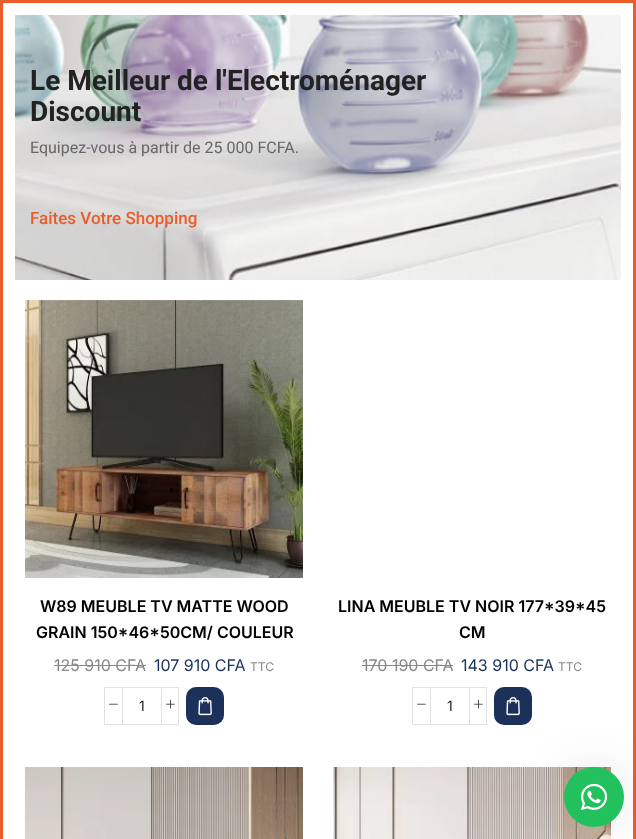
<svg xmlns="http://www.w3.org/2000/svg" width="636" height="839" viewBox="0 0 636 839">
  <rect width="100%" height="100%" fill="rgb(255,255,255)"/>
  <rect x="1.5" y="1.5" width="633" height="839" fill="none" stroke="rgb(233,93,42)" stroke-width="3"/>
  <image x="15" y="15" width="606" height="265" href="pic1.png"/>
  <g font-family="Roboto" font-size="28" font-weight="bold" fill="rgb(34,34,34)">
    <text>
      <tspan x="30" y="90">Le Meilleur de l'Electroménager</tspan>
      <tspan x="30" y="121">Discount</tspan>
    </text>
  </g>
  <text x="30" y="153" font-family="Roboto" font-size="16" fill="rgb(102,102,102)">Equipez-vous à partir de 25 000 FCFA.</text>
  <text x="30" y="224" font-family="Roboto" font-size="17" font-weight="500" fill="rgb(233,93,42)">Faites Votre Shopping</text>
  <image x="25" y="300" width="278" height="278" href="pic2.png"/>
  <g font-family="Inter" font-size="16" font-weight="600" fill="rgb(0,0,0)">
    <text x="40" y="612">W89 MEUBLE TV MATTE WOOD</text>
    <text x="36" y="638">GRAIN 150*46*50CM/ COULEUR</text>
  </g>
  <text x="54" y="671" font-family="Inter" font-size="16" fill="rgb(136,136,136)">125 910 CFA</text>
  <rect x="54" y="665" width="92" height="1" fill="rgb(136,136,136)"/>
  <text x="154" y="671" font-family="Inter" font-size="16" fill="rgb(27,49,89)">107 910 CFA</text>
  <text x="250" y="671" font-family="Inter" font-size="12" fill="rgb(136,136,136)">TTC</text>
  <rect x="104.5" y="687.5" width="18" height="37" fill="none" stroke="rgb(225,225,225)"/>
  <image x="109" y="703" width="9" height="2" href="pic3.png"/>
  <rect x="123" y="687" width="38" height="1" fill="rgb(225,225,225)"/>
  <rect x="123" y="724" width="38" height="1" fill="rgb(225,225,225)"/>
  <text x="139" y="711" font-family="Inter" font-size="14" fill="rgb(34,34,34)">1</text>
  <rect x="161.5" y="687.5" width="17" height="37" fill="none" stroke="rgb(225,225,225)"/>
  <image x="166" y="699" width="9" height="10" href="pic4.png"/>
  <rect x="186" y="687" width="38" height="38" rx="10" fill="rgb(27,49,89)"/>
  <image x="198" y="697" width="14" height="19" href="pic5.png"/>
  <g font-family="Inter" font-size="16" font-weight="600" fill="rgb(0,0,0)">
    <text x="338" y="612">LINA MEUBLE TV NOIR 177*39*45</text>
    <text x="459" y="638">CM</text>
  </g>
  <text x="362" y="671" font-family="Inter" font-size="16" fill="rgb(136,136,136)">170 190 CFA</text>
  <rect x="362" y="665" width="91" height="1" fill="rgb(136,136,136)"/>
  <text x="461" y="671" font-family="Inter" font-size="16" fill="rgb(27,49,89)">143 910 CFA</text>
  <text x="558" y="671" font-family="Inter" font-size="12" fill="rgb(136,136,136)">TTC</text>
  <rect x="412.5" y="687.5" width="18" height="37" fill="none" stroke="rgb(225,225,225)"/>
  <image x="417" y="703" width="9" height="2" href="pic3.png"/>
  <rect x="431" y="687" width="38" height="1" fill="rgb(225,225,225)"/>
  <rect x="431" y="724" width="38" height="1" fill="rgb(225,225,225)"/>
  <text x="447" y="711" font-family="Inter" font-size="14" fill="rgb(34,34,34)">1</text>
  <rect x="469.5" y="687.5" width="17" height="37" fill="none" stroke="rgb(225,225,225)"/>
  <image x="474" y="699" width="9" height="10" href="pic4.png"/>
  <rect x="494" y="687" width="38" height="38" rx="10" fill="rgb(27,49,89)"/>
  <image x="506" y="697" width="14" height="19" href="pic5.png"/>
  <image x="25" y="767" width="278" height="72" href="pic6.png"/>
  <image x="333" y="767" width="278" height="72" href="pic7.png"/>
  <rect x="564" y="767" width="60" height="60" rx="30" fill="rgba(0,0,0,0.1)" filter="blur(25px)"/>
  <circle cx="594" cy="797" r="30" fill="rgb(34,193,94)"/>
  <image x="581" y="783" width="27" height="27" href="pic8.png"/>
</svg>
